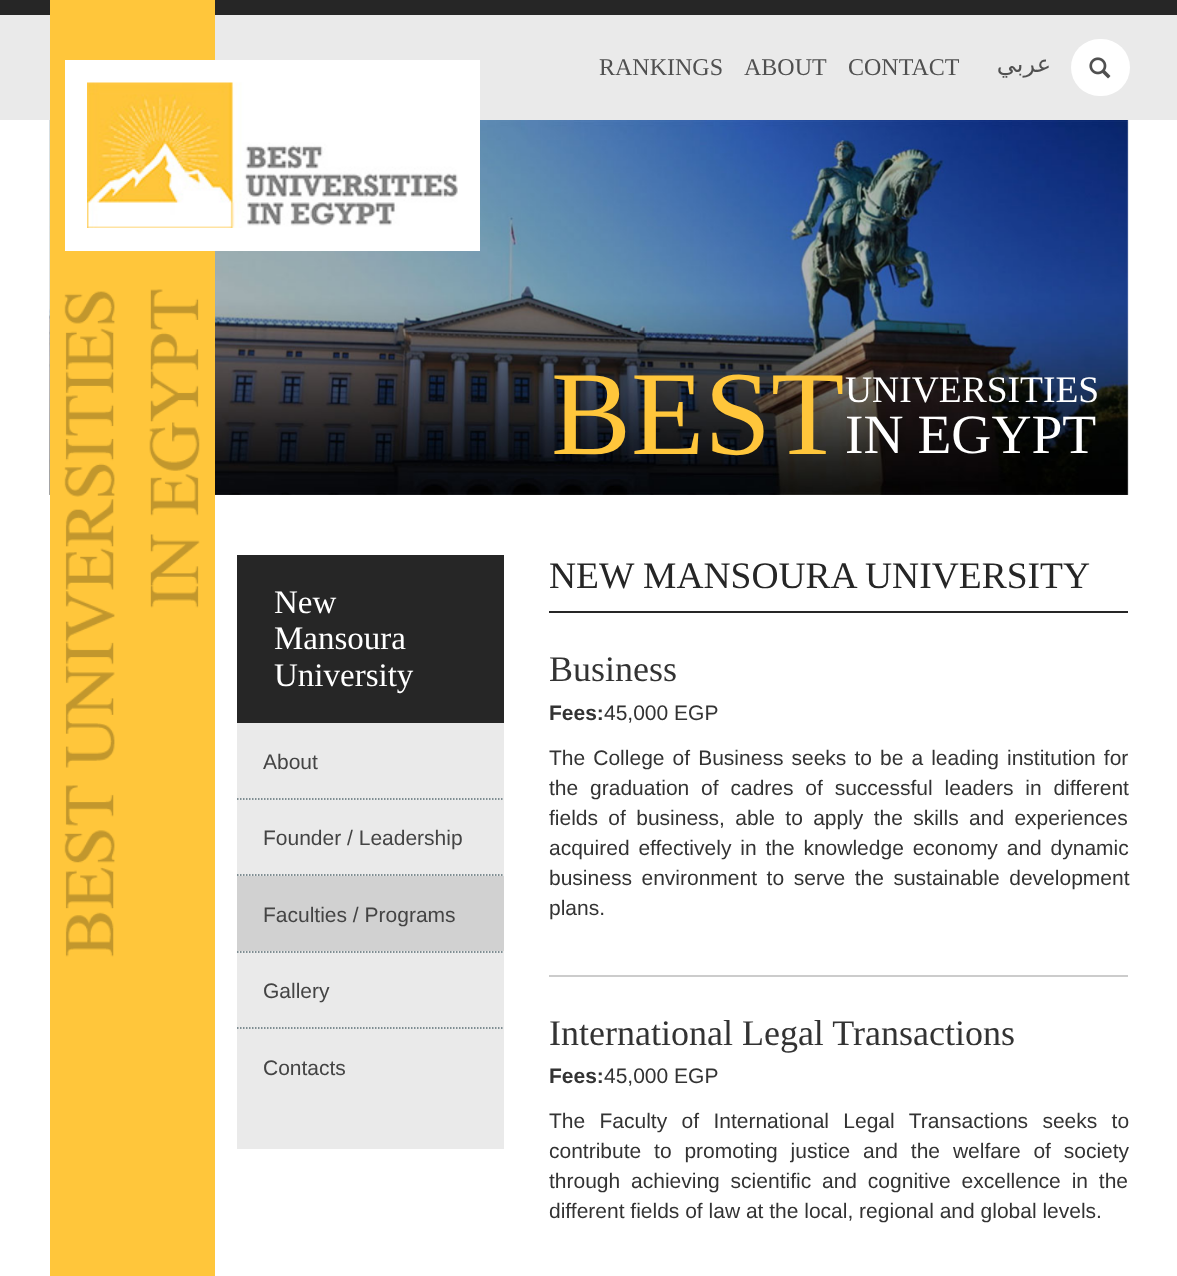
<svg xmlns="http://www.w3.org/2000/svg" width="1177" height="1276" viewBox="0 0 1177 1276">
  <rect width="100%" height="100%" fill="rgb(255,255,255)"/>
  <rect x="0" y="15" width="1177" height="105" fill="rgb(234,234,234)"/>
  <rect x="0" y="0" width="1177" height="15" fill="rgb(38,38,38)"/>
  <image x="49" y="120" width="1080" height="375" href="pic4.png"/>
  <rect x="50" y="0" width="165" height="1276" fill="rgb(255,198,59)"/>
  <rect x="65" y="60" width="415" height="191" fill="rgb(255,255,255)"/>
  <image x="87" y="82" width="371" height="146" href="pic1.png"/>
  <g font-family="Liberation Serif" font-size="24" fill="rgb(80,80,80)">
    <text x="599" y="75">RANKINGS</text>
    <text x="744" y="75">ABOUT</text>
    <text x="848" y="75">CONTACT</text>
  </g>
  <text x="1051" y="72" font-family="DejaVu Sans" font-size="24" direction="rtl" fill="rgb(80,80,80)">عربي</text>
  <rect x="1071" y="39" width="59" height="57" rx="28.5" fill="rgb(255,255,255)"/>
  <image x="1089" y="57" width="22" height="22" href="pic2.png"/>
  <image x="64" y="289" width="136" height="668" href="pic3.png"/>
  <text x="551" y="454" font-family="Liberation Serif" font-size="120" fill="rgb(255,198,59)">BEST</text>
  <text x="845" y="402" font-family="Liberation Serif" font-size="37.5" fill="rgb(255,255,255)">UNIVERSITIES</text>
  <text x="845" y="453" font-family="Liberation Serif" font-size="55.5" fill="rgb(255,255,255)">IN EGYPT</text>
  <rect x="237" y="723" width="267" height="426" fill="rgb(234,234,234)"/>
  <rect x="237" y="555" width="267" height="168" fill="rgb(38,38,38)"/>
  <g font-family="Liberation Serif" font-size="33" fill="rgb(255,255,255)">
    <text>
      <tspan x="274" y="613">New</tspan>
      <tspan x="274" y="649">Mansoura</tspan>
      <tspan x="274" y="686">University</tspan>
    </text>
  </g>
  <path d="M237 799H504" fill="none" stroke="rgb(92,111,117)" stroke-width="1.5" stroke-dasharray="1.5 1.5"/>
  <text x="263" y="769" font-family="Liberation Sans" font-size="21" fill="rgb(68,68,68)">About</text>
  <path d="M237 875H504" fill="none" stroke="rgb(92,111,117)" stroke-width="1.5" stroke-dasharray="1.5 1.5"/>
  <text x="263" y="845" font-family="Liberation Sans" font-size="21" fill="rgb(68,68,68)">Founder / Leadership</text>
  <path d="M237 952H504" fill="none" stroke="rgb(92,111,117)" stroke-width="1.5" stroke-dasharray="1.5 1.5"/>
  <rect x="237" y="876" width="267" height="75" fill="rgb(209,209,209)"/>
  <text x="263" y="922" font-family="Liberation Sans" font-size="21" fill="rgb(68,68,68)">Faculties / Programs</text>
  <path d="M237 1028H504" fill="none" stroke="rgb(92,111,117)" stroke-width="1.5" stroke-dasharray="1.5 1.5"/>
  <g font-family="Liberation Sans" font-size="21" fill="rgb(68,68,68)">
    <text x="263" y="998">Gallery</text>
    <text x="263" y="1075">Contacts</text>
  </g>
  <rect x="549" y="611" width="579" height="2" fill="rgb(38,38,38)"/>
  <text x="549" y="588" font-family="Liberation Serif" font-size="37.5" fill="rgb(38,38,38)">NEW MANSOURA UNIVERSITY</text>
  <rect x="549" y="975" width="579" height="2" fill="rgb(204,204,204)"/>
  <text x="549" y="681" font-family="Liberation Serif" font-size="36" fill="rgb(51,51,51)">Business</text>
  <text x="549" y="720" font-family="Liberation Sans" font-size="21" font-weight="bold" fill="rgb(51,51,51)">Fees:</text>
  <g font-family="Liberation Sans" font-size="21" fill="rgb(51,51,51)">
    <text x="604" y="720">45,000 EGP</text>
    <text>
      <tspan x="549" y="765" word-spacing="2.25">The College of Business seeks to be a leading institution for</tspan>
      <tspan x="549" y="795" word-spacing="6">the graduation of cadres of successful leaders in different</tspan>
      <tspan x="549" y="825" word-spacing="4.5">fields of business, able to apply the skills and experiences</tspan>
      <tspan x="549" y="855" word-spacing="3">acquired effectively in the knowledge economy and dynamic</tspan>
      <tspan x="549" y="885" word-spacing="3.75">business environment to serve the sustainable development</tspan>
      <tspan x="549" y="915">plans.</tspan>
    </text>
  </g>
  <text x="549" y="1045" font-family="Liberation Serif" font-size="36" fill="rgb(51,51,51)">International Legal Transactions</text>
  <text x="549" y="1083" font-family="Liberation Sans" font-size="21" font-weight="bold" fill="rgb(51,51,51)">Fees:</text>
  <g font-family="Liberation Sans" font-size="21" fill="rgb(51,51,51)">
    <text x="604" y="1083">45,000 EGP</text>
    <text>
      <tspan x="549" y="1128" word-spacing="8.5">The Faculty of International Legal Transactions seeks to</tspan>
      <tspan x="549" y="1158" word-spacing="7">contribute to promoting justice and the welfare of society</tspan>
      <tspan x="549" y="1188" word-spacing="5">through achieving scientific and cognitive excellence in the</tspan>
      <tspan x="549" y="1218">different fields of law at the local, regional and global levels.</tspan>
    </text>
  </g>
</svg>
